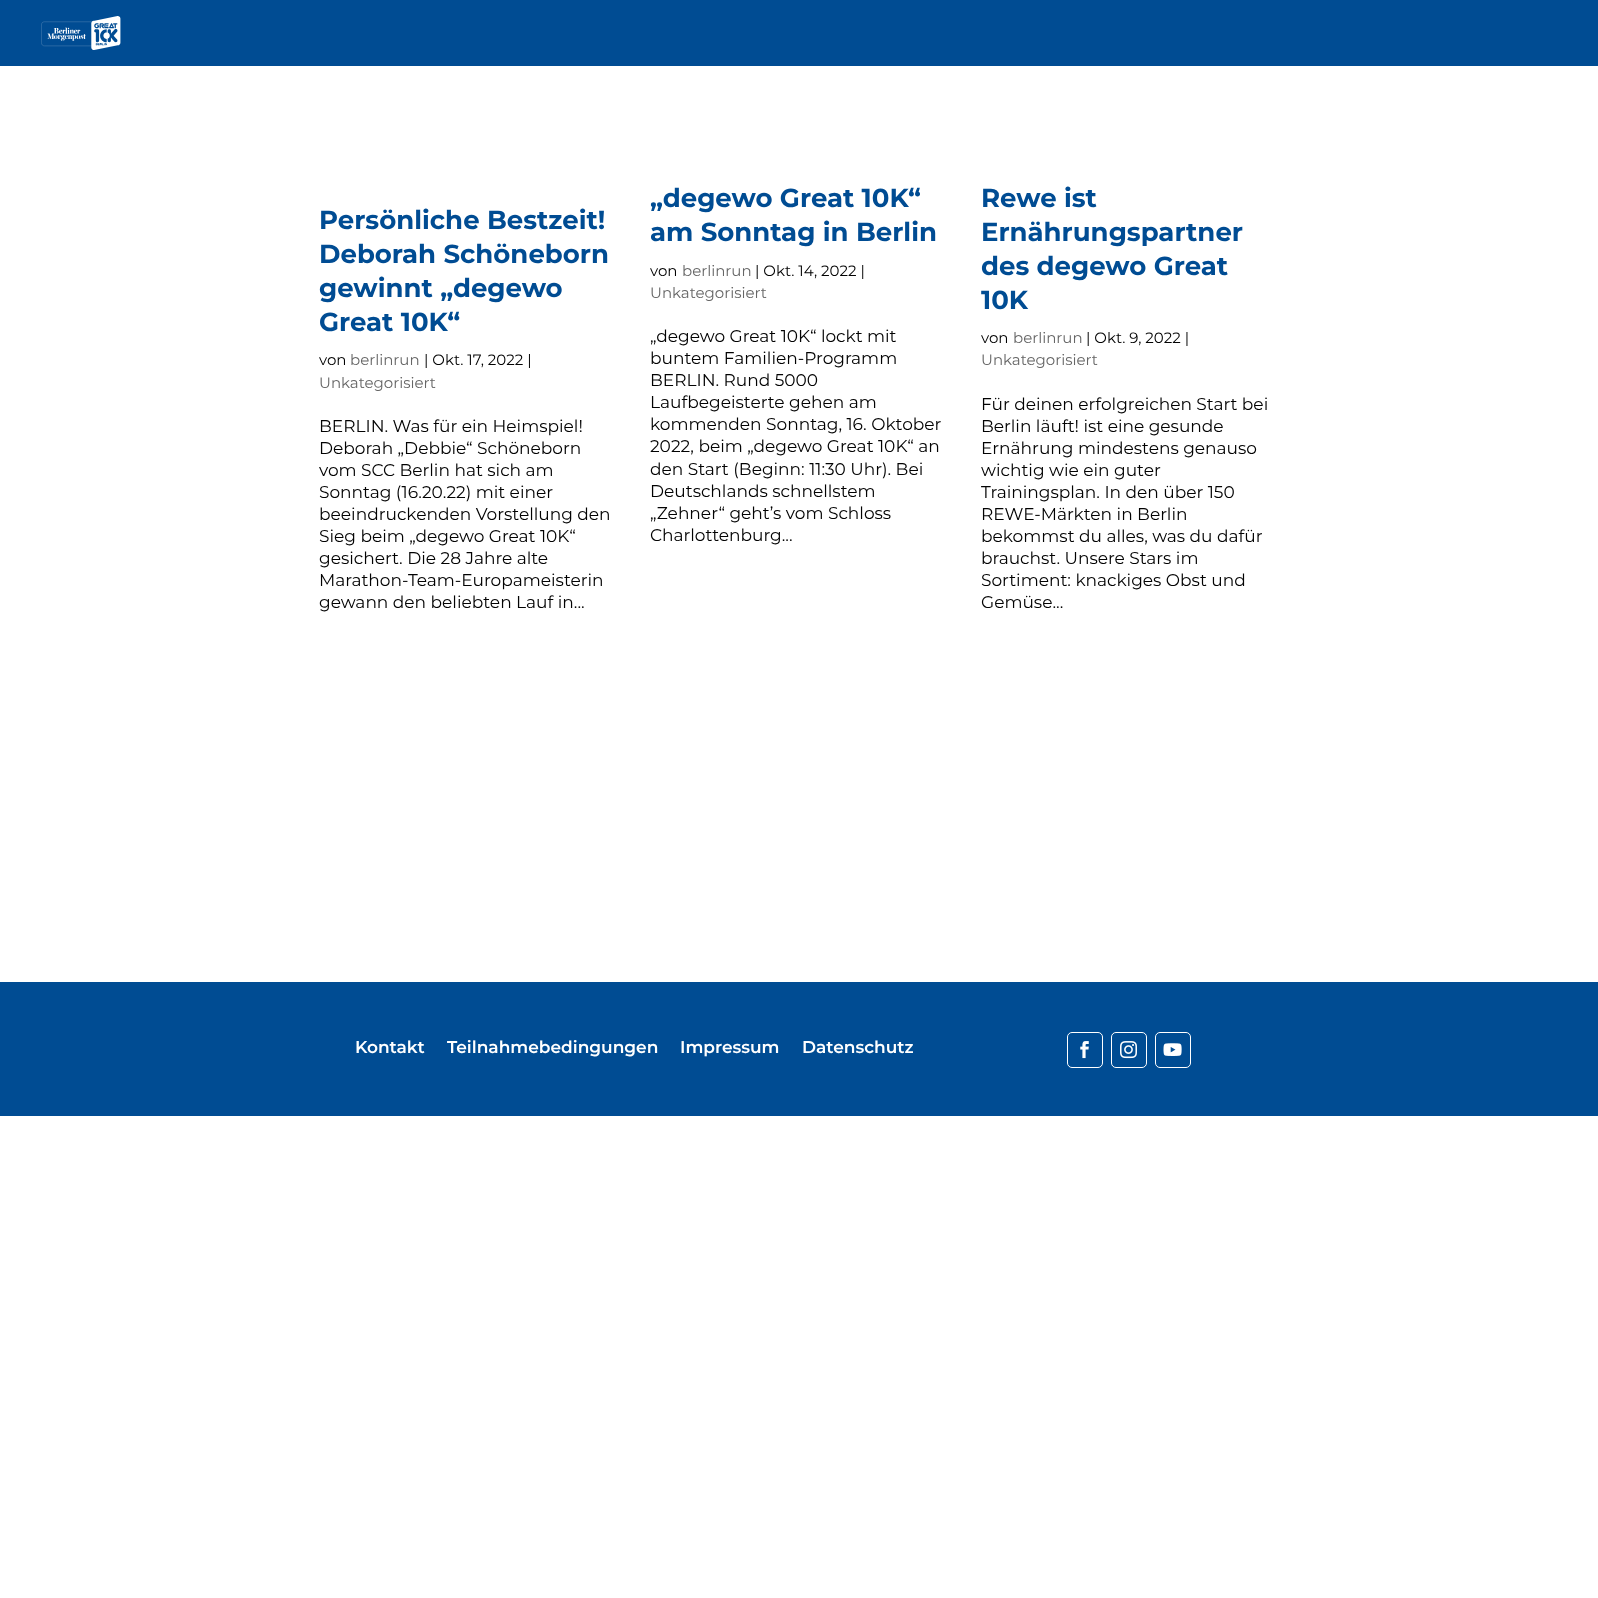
<svg xmlns="http://www.w3.org/2000/svg" width="1598" height="1598" viewBox="0 0 1598 1598">
  <rect width="100%" height="100%" fill="rgb(255,255,255)"/>
  <rect x="0" y="0" width="1598" height="66" fill="rgb(0,76,147)"/>
  <image x="41" y="16" width="80" height="34" href="pic1.png"/>
  <g font-family="Montserrat" font-size="26" font-weight="bold" fill="rgb(0,76,147)">
    <text>
      <tspan x="319" y="229">Persönliche Bestzeit!</tspan>
      <tspan x="319" y="263">Deborah Schöneborn</tspan>
      <tspan x="319" y="297">gewinnt „degewo</tspan>
      <tspan x="319" y="331">Great 10K“</tspan>
    </text>
  </g>
  <text x="319" y="365" font-family="Montserrat" font-size="15" fill="rgb(2,2,2)">von</text>
  <text x="350" y="365" font-family="Montserrat" font-size="15" fill="rgb(102,102,102)">berlinrun</text>
  <text x="424" y="365" font-family="Montserrat" font-size="15" fill="rgb(2,2,2)">| Okt. 17, 2022 |</text>
  <text x="319" y="388" font-family="Montserrat" font-size="15" fill="rgb(102,102,102)">Unkategorisiert</text>
  <g font-family="Montserrat" font-size="17" fill="rgb(2,2,2)">
    <text>
      <tspan x="319" y="432">BERLIN. Was für ein Heimspiel!</tspan>
      <tspan x="319" y="454">Deborah „Debbie“ Schöneborn</tspan>
      <tspan x="319" y="476">vom SCC Berlin hat sich am</tspan>
      <tspan x="319" y="498">Sonntag (16.20.22) mit einer</tspan>
      <tspan x="319" y="520">beeindruckenden Vorstellung den</tspan>
      <tspan x="319" y="542">Sieg beim „degewo Great 10K“</tspan>
      <tspan x="319" y="564">gesichert. Die 28 Jahre alte</tspan>
      <tspan x="319" y="586">Marathon-Team-Europameisterin</tspan>
      <tspan x="319" y="608">gewann den beliebten Lauf in...</tspan>
    </text>
  </g>
  <g font-family="Montserrat" font-size="26" font-weight="bold" fill="rgb(0,76,147)">
    <text>
      <tspan x="650" y="207">„degewo Great 10K“</tspan>
      <tspan x="650" y="241">am Sonntag in Berlin</tspan>
    </text>
  </g>
  <text x="650" y="276" font-family="Montserrat" font-size="15" fill="rgb(2,2,2)">von</text>
  <text x="682" y="276" font-family="Montserrat" font-size="15" fill="rgb(102,102,102)">berlinrun</text>
  <text x="755" y="276" font-family="Montserrat" font-size="15" fill="rgb(2,2,2)">| Okt. 14, 2022 |</text>
  <text x="650" y="298" font-family="Montserrat" font-size="15" fill="rgb(102,102,102)">Unkategorisiert</text>
  <g font-family="Montserrat" font-size="17" fill="rgb(2,2,2)">
    <text>
      <tspan x="650" y="342">„degewo Great 10K“ lockt mit</tspan>
      <tspan x="650" y="364">buntem Familien-Programm</tspan>
      <tspan x="650" y="386">BERLIN. Rund 5000</tspan>
      <tspan x="650" y="408">Laufbegeisterte gehen am</tspan>
      <tspan x="650" y="430">kommenden Sonntag, 16. Oktober</tspan>
      <tspan x="650" y="452">2022, beim „degewo Great 10K“ an</tspan>
      <tspan x="650" y="475">den Start (Beginn: 11:30 Uhr). Bei</tspan>
      <tspan x="650" y="497">Deutschlands schnellstem</tspan>
      <tspan x="650" y="519">„Zehner“ geht’s vom Schloss</tspan>
      <tspan x="650" y="541">Charlottenburg...</tspan>
    </text>
  </g>
  <g font-family="Montserrat" font-size="26" font-weight="bold" fill="rgb(0,76,147)">
    <text>
      <tspan x="981" y="207">Rewe ist</tspan>
      <tspan x="981" y="241">Ernährungspartner</tspan>
      <tspan x="981" y="275">des degewo Great</tspan>
      <tspan x="981" y="309">10K</tspan>
    </text>
  </g>
  <text x="981" y="343" font-family="Montserrat" font-size="15" fill="rgb(2,2,2)">von</text>
  <text x="1013" y="343" font-family="Montserrat" font-size="15" fill="rgb(102,102,102)">berlinrun</text>
  <text x="1086" y="343" font-family="Montserrat" font-size="15" fill="rgb(2,2,2)">| Okt. 9, 2022 |</text>
  <text x="981" y="365" font-family="Montserrat" font-size="15" fill="rgb(102,102,102)">Unkategorisiert</text>
  <g font-family="Montserrat" font-size="17" fill="rgb(2,2,2)">
    <text>
      <tspan x="981" y="410">Für deinen erfolgreichen Start bei</tspan>
      <tspan x="981" y="432">Berlin läuft! ist eine gesunde</tspan>
      <tspan x="981" y="454">Ernährung mindestens genauso</tspan>
      <tspan x="981" y="476">wichtig wie ein guter</tspan>
      <tspan x="981" y="498">Trainingsplan. In den über 150</tspan>
      <tspan x="981" y="520">REWE-Märkten in Berlin</tspan>
      <tspan x="981" y="542">bekommst du alles, was du dafür</tspan>
      <tspan x="981" y="564">brauchst. Unsere Stars im</tspan>
      <tspan x="981" y="586">Sortiment: knackiges Obst und</tspan>
      <tspan x="981" y="608">Gemüse...</tspan>
    </text>
  </g>
  <rect x="0" y="982" width="1598" height="134" fill="rgb(0,76,147)"/>
  <g font-family="Montserrat" font-size="17" font-weight="600" fill="rgb(255,255,255)">
    <text x="355" y="1053">Kontakt</text>
    <text x="447" y="1053">Teilnahmebedingungen</text>
    <text x="680" y="1053">Impressum</text>
    <text x="802" y="1053">Datenschutz</text>
  </g>
  <rect x="1067.5" y="1032.5" width="35" height="35" rx="4.5" fill="none" stroke="rgb(255,255,255)"/>
  <image x="1080" y="1041" width="9" height="18" href="pic2.png"/>
  <rect x="1111.5" y="1032.5" width="35" height="35" rx="4.5" fill="none" stroke="rgb(255,255,255)"/>
  <image x="1120" y="1041" width="17" height="18" href="pic3.png"/>
  <rect x="1155.5" y="1032.5" width="35" height="35" rx="4.5" fill="none" stroke="rgb(255,255,255)"/>
  <image x="1163" y="1043" width="19" height="13" href="pic4.png"/>
</svg>
